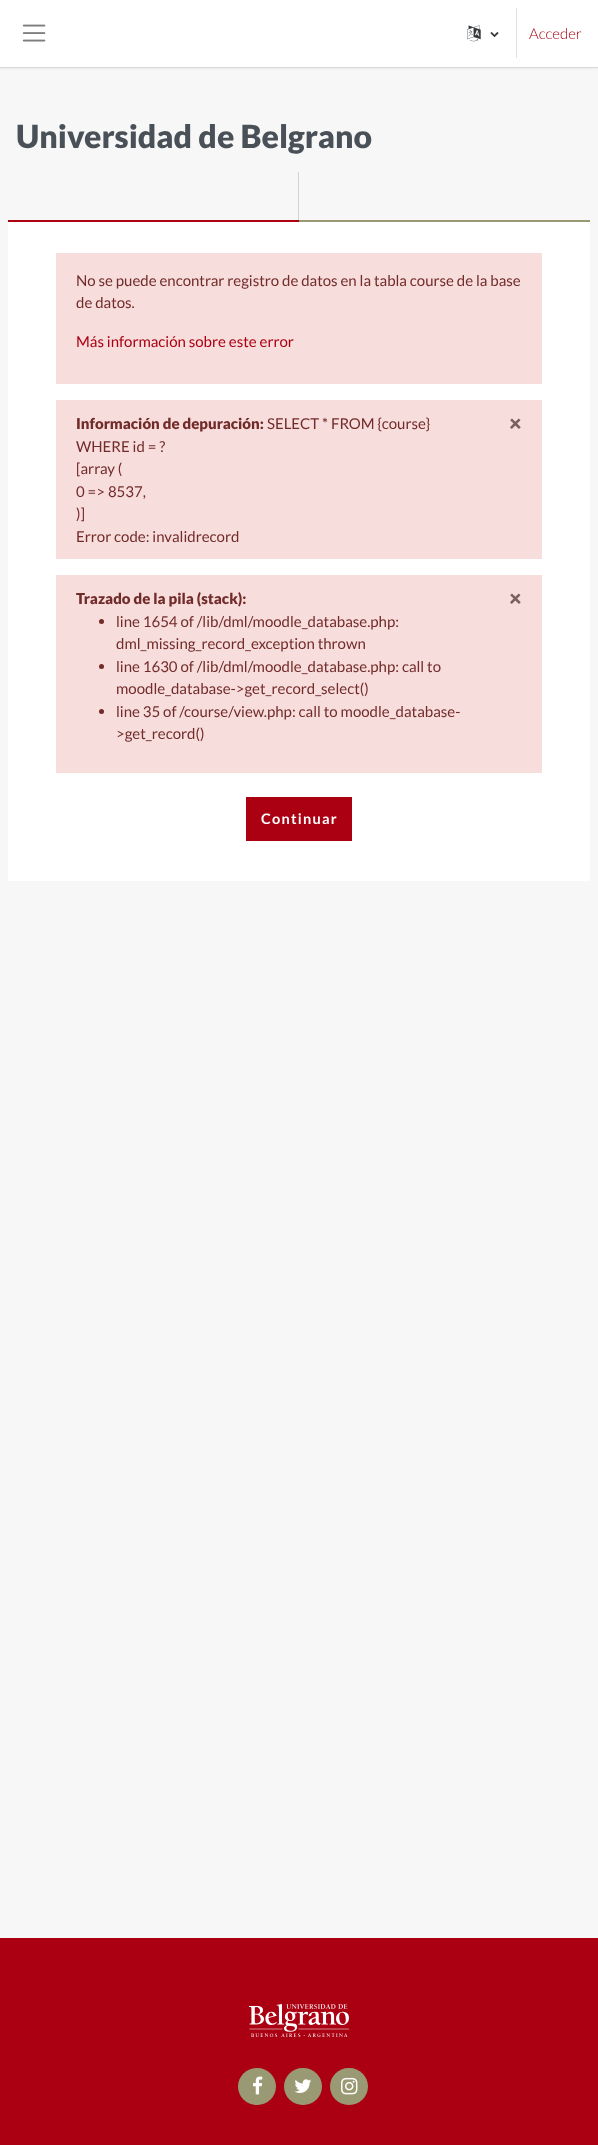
<svg xmlns="http://www.w3.org/2000/svg" width="598" height="2145" viewBox="0 0 598 2145">
  <rect width="100%" height="100%" fill="rgb(247,247,247)"/>
  <rect x="0" y="1" width="598" height="68" fill="rgba(0,0,0,0.05)" filter="blur(1px)"/>
  <rect x="0" y="0" width="598" height="67" fill="rgb(255,255,255)"/>
  <rect x="0" y="67" width="598" height="1" fill="rgb(216,216,216)"/>
  <image x="22" y="24" width="24" height="18" href="pic1.png"/>
  <image x="467" y="25" width="14" height="17" href="pic2.png"/>
  <image x="490" y="32" width="9" height="6" href="pic3.png"/>
  <rect x="516" y="8" width="1" height="50" fill="rgb(222,226,230)"/>
  <text x="529" y="39" font-family="Lato" font-size="15" font-weight="300" fill="rgb(170,0,18)">Acceder</text>
  <text x="16" y="148" font-family="Lato" font-size="32" font-weight="900" fill="rgb(73,80,87)">Universidad de Belgrano</text>
  <rect x="298" y="172" width="1" height="48" fill="rgb(211,211,211)"/>
  <rect x="8" y="220" width="291" height="2" fill="rgb(170,0,18)"/>
  <rect x="299" y="220" width="291" height="2" fill="rgb(153,153,115)"/>
  <rect x="8" y="222" width="582" height="659" fill="rgb(255,255,255)"/>
  <rect x="56" y="253" width="486" height="131" fill="rgb(247,221,220)"/>
  <g font-family="Lato" font-size="15" fill="rgb(113,43,41)">
    <text>
      <tspan x="76" y="286">No se puede encontrar registro de datos en la tabla course de la base</tspan>
      <tspan x="76" y="308">de datos.</tspan>
    </text>
  </g>
  <text x="76" y="347" font-family="Lato" font-size="15" fill="rgb(170,0,18)">Más información sobre este error</text>
  <rect x="56" y="400" width="486" height="159" fill="rgb(247,221,220)"/>
  <text x="76" y="429" font-family="Lato" font-size="15" font-weight="900" fill="rgb(113,43,41)">Información de depuración:</text>
  <text x="267" y="429" font-family="Lato" font-size="15" fill="rgb(113,43,41)">SELECT * FROM {course}</text>
  <text x="509" y="431" font-family="Lato" font-size="22" font-weight="900" fill="rgb(122,97,96)">×</text>
  <g font-family="Lato" font-size="15" fill="rgb(113,43,41)">
    <text>
      <tspan x="76" y="452">WHERE id = ?</tspan>
      <tspan x="76" y="474">[array (</tspan>
      <tspan x="76" y="497">0 =&gt; 8537,</tspan>
      <tspan x="76" y="519">)]</tspan>
      <tspan x="76" y="542">Error code: invalidrecord</tspan>
    </text>
  </g>
  <rect x="56" y="575" width="486" height="198" fill="rgb(247,221,220)"/>
  <text x="76" y="604" font-family="Lato" font-size="15" font-weight="900" fill="rgb(113,43,41)">Trazado de la pila (stack):</text>
  <text x="509" y="606" font-family="Lato" font-size="22" font-weight="900" fill="rgb(122,97,96)">×</text>
  <circle cx="101.5" cy="621.5" r="2.5" fill="rgb(113,43,41)"/>
  <g font-family="Lato" font-size="15" fill="rgb(113,43,41)">
    <text>
      <tspan x="116" y="627">line 1654 of /lib/dml/moodle_database.php:</tspan>
      <tspan x="116" y="649">dml_missing_record_exception thrown</tspan>
    </text>
  </g>
  <circle cx="101.5" cy="666.5" r="2.5" fill="rgb(113,43,41)"/>
  <g font-family="Lato" font-size="15" fill="rgb(113,43,41)">
    <text>
      <tspan x="116" y="672">line 1630 of /lib/dml/moodle_database.php: call to</tspan>
      <tspan x="116" y="694">moodle_database-&gt;get_record_select()</tspan>
    </text>
  </g>
  <circle cx="101.5" cy="711.5" r="2.5" fill="rgb(113,43,41)"/>
  <g font-family="Lato" font-size="15" fill="rgb(113,43,41)">
    <text>
      <tspan x="116" y="717">line 35 of /course/view.php: call to moodle_database-</tspan>
      <tspan x="116" y="739">&gt;get_record()</tspan>
    </text>
  </g>
  <rect x="246" y="797" width="106" height="44" fill="rgb(170,0,18)"/>
  <text x="261" y="824" font-family="Lato" font-size="14.5" font-weight="bold" letter-spacing="1.25" fill="rgb(255,255,255)">Continuar</text>
  <rect x="0" y="1938" width="598" height="207" fill="rgb(170,0,18)"/>
  <image x="249" y="2004" width="100" height="33" href="pic4.png"/>
  <rect x="238" y="2068" width="38" height="37" rx="18.5" fill="rgb(153,153,115)"/>
  <image x="253" y="2076" width="10" height="19" href="pic5.png"/>
  <rect x="284" y="2068" width="38" height="37" rx="18.5" fill="rgb(153,153,115)"/>
  <image x="294" y="2079" width="18" height="14" href="pic6.png"/>
  <rect x="330" y="2068" width="38" height="37" rx="18.5" fill="rgb(153,153,115)"/>
  <image x="341" y="2077" width="17" height="18" href="pic7.png"/>
</svg>
